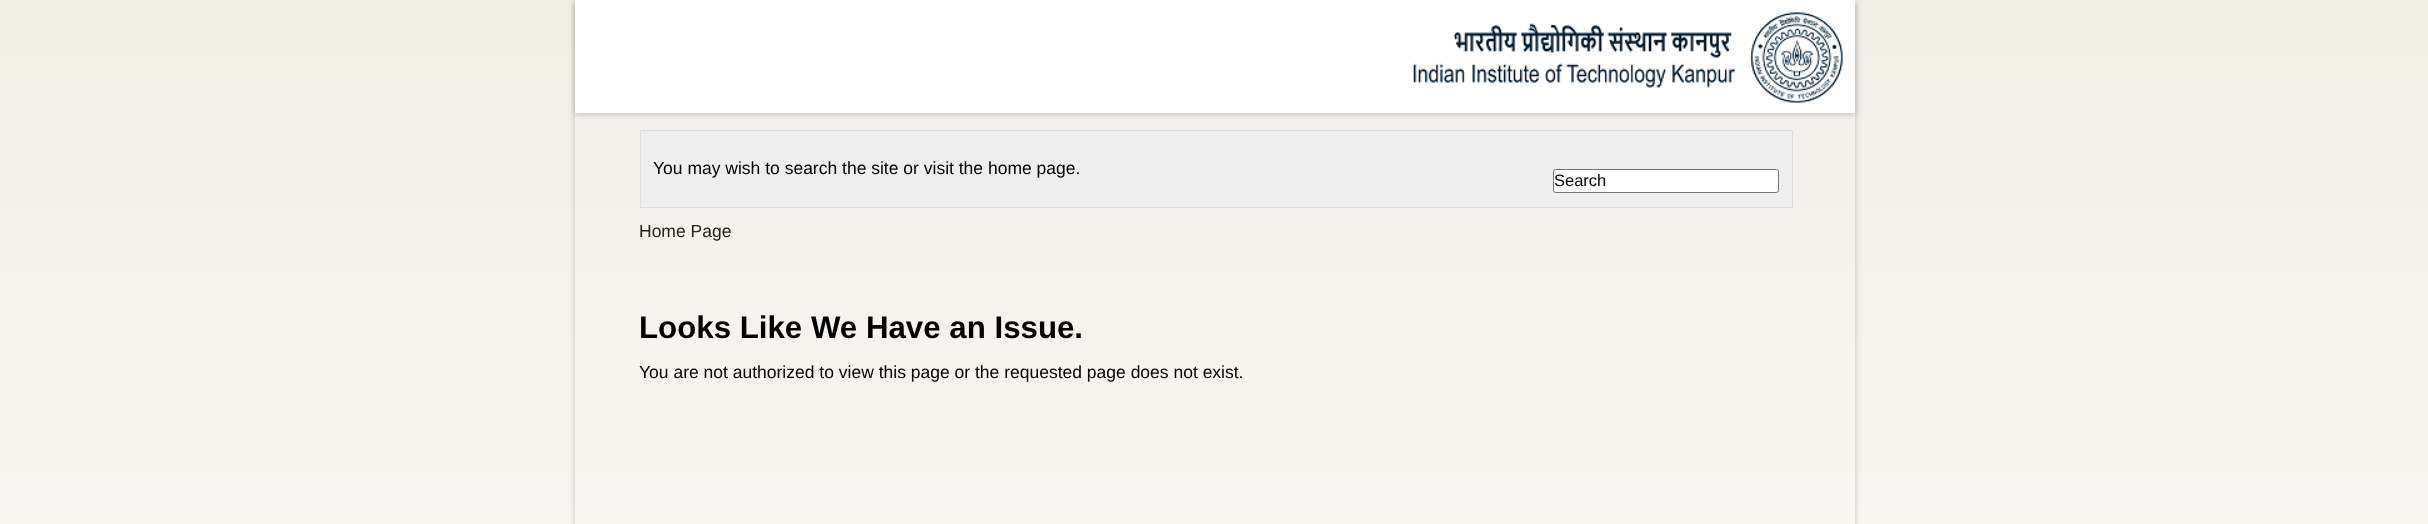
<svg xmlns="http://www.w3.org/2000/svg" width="2428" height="524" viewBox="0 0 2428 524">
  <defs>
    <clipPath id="clip1"><path d="M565 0H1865V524H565ZM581 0H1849C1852.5 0 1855 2.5 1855 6V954C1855 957.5 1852.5 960 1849 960H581C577.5 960 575 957.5 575 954V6C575 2.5 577.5 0 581 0Z" clip-rule="evenodd"/></clipPath>
  </defs>
  <rect width="100%" height="100%" fill="rgb(255,255,255)"/>
  <image x="0" y="0" width="2428" height="524" href="pic1.png"/>
  <g clip-path="url(#clip1)">
    <rect x="575" y="1" width="1280" height="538" rx="6" fill="rgba(0,0,0,0.2)" filter="blur(3px)"/>
  </g>
  <rect x="575" y="1" width="1280" height="113" fill="rgba(0,0,0,0.2)" filter="blur(3px)"/>
  <rect x="575" y="0" width="1280" height="113" fill="rgb(255,255,255)"/>
  <image x="1413" y="12" width="430" height="91" href="pic2.png"/>
  <rect x="640.5" y="130.5" width="1152" height="77" fill="rgb(238,238,238)" stroke="rgb(221,221,221)"/>
  <text x="653" y="174" font-family="Liberation Sans" font-size="17.5" fill="rgb(0,0,0)">You may wish to search the site or visit the home page.</text>
  <rect x="1553.5" y="169.5" width="225" height="23" rx="2" fill="rgb(255,255,255)" stroke="rgb(118,118,118)"/>
  <text x="1554" y="186" font-family="Liberation Sans" font-size="16.5" fill="rgb(0,0,0)">Search</text>
  <text x="639" y="237" font-family="Liberation Sans" font-size="17.5" fill="rgb(34,34,34)">Home Page</text>
  <text x="639" y="338" font-family="Liberation Sans" font-size="31.25" font-weight="bold" fill="rgb(0,0,0)">Looks Like We Have an Issue.</text>
  <text x="639" y="378" font-family="Liberation Sans" font-size="17.5" fill="rgb(0,0,0)">You are not authorized to view this page or the requested page does not exist.</text>
</svg>
